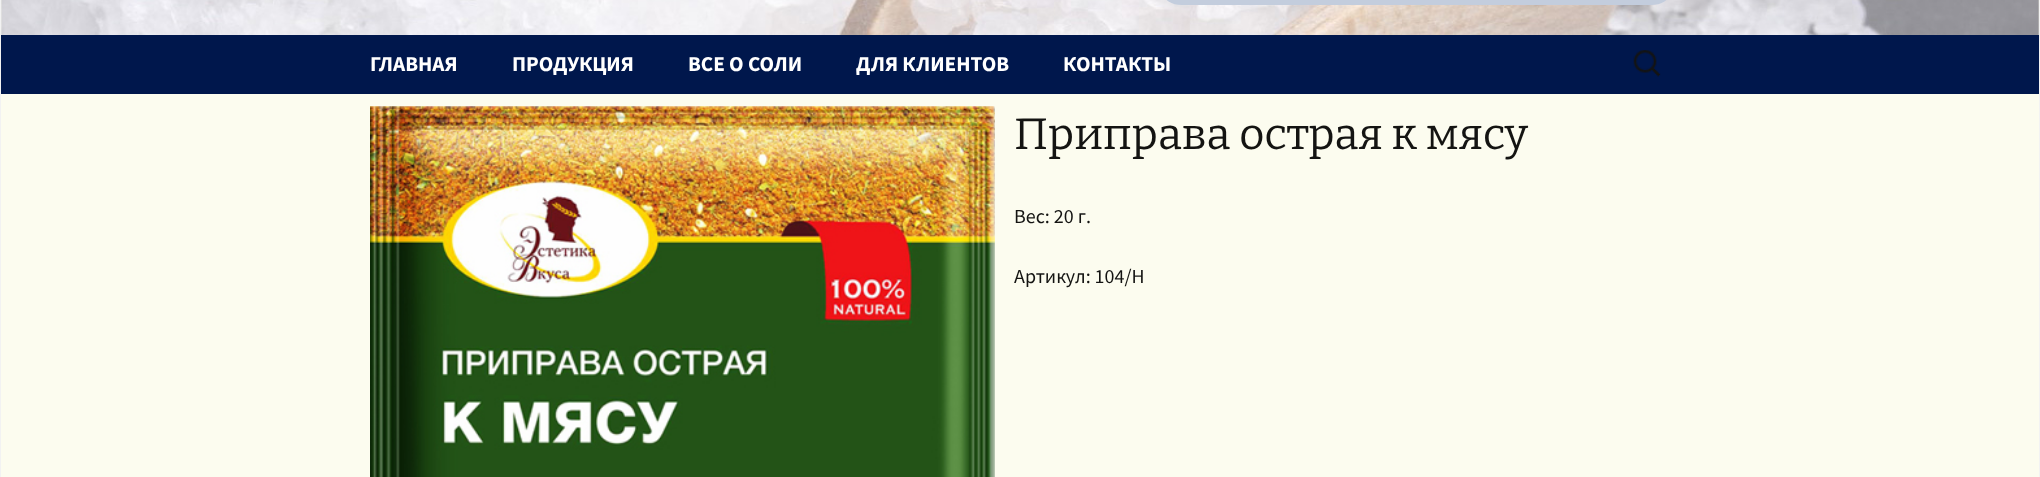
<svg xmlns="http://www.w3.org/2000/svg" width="2040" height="477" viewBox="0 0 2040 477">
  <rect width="100%" height="100%" fill="rgb(252,252,239)"/>
  <rect x="2039" y="0" width="1" height="477" fill="rgb(242,242,242)"/>
  <rect x="0" y="0" width="1" height="477" fill="rgb(242,242,242)"/>
  <image x="1" y="0" width="2038" height="35" href="pic1.png"/>
  <rect x="1163" y="-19" width="507" height="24" rx="19" fill="rgb(195,205,221)"/>
  <rect x="1" y="35" width="2038" height="59" fill="rgb(0,23,76)"/>
  <g font-family="Source Sans Pro" font-size="21.25" font-weight="bold" fill="rgb(255,255,255)">
    <text x="370" y="71">ГЛАВНАЯ</text>
    <text x="512" y="71">ПРОДУКЦИЯ</text>
    <text x="688" y="71">ВСЕ О СОЛИ</text>
    <text x="856" y="71">ДЛЯ КЛИЕНТОВ</text>
    <text x="1063" y="71">КОНТАКТЫ</text>
  </g>
  <image x="1633" y="50" width="28" height="27" href="pic2.png"/>
  <image x="370" y="106" width="625" height="371" href="pic3.png"/>
  <text x="1014" y="149" font-family="Bitter" font-size="43.75" fill="rgb(20,20,18)">Приправа острая к мясу</text>
  <g font-family="Source Sans Pro" font-size="20" fill="rgb(20,20,18)">
    <text x="1014" y="223">Вес: 20 г.</text>
    <text x="1014" y="283">Артикул: 104/Н</text>
  </g>
</svg>
